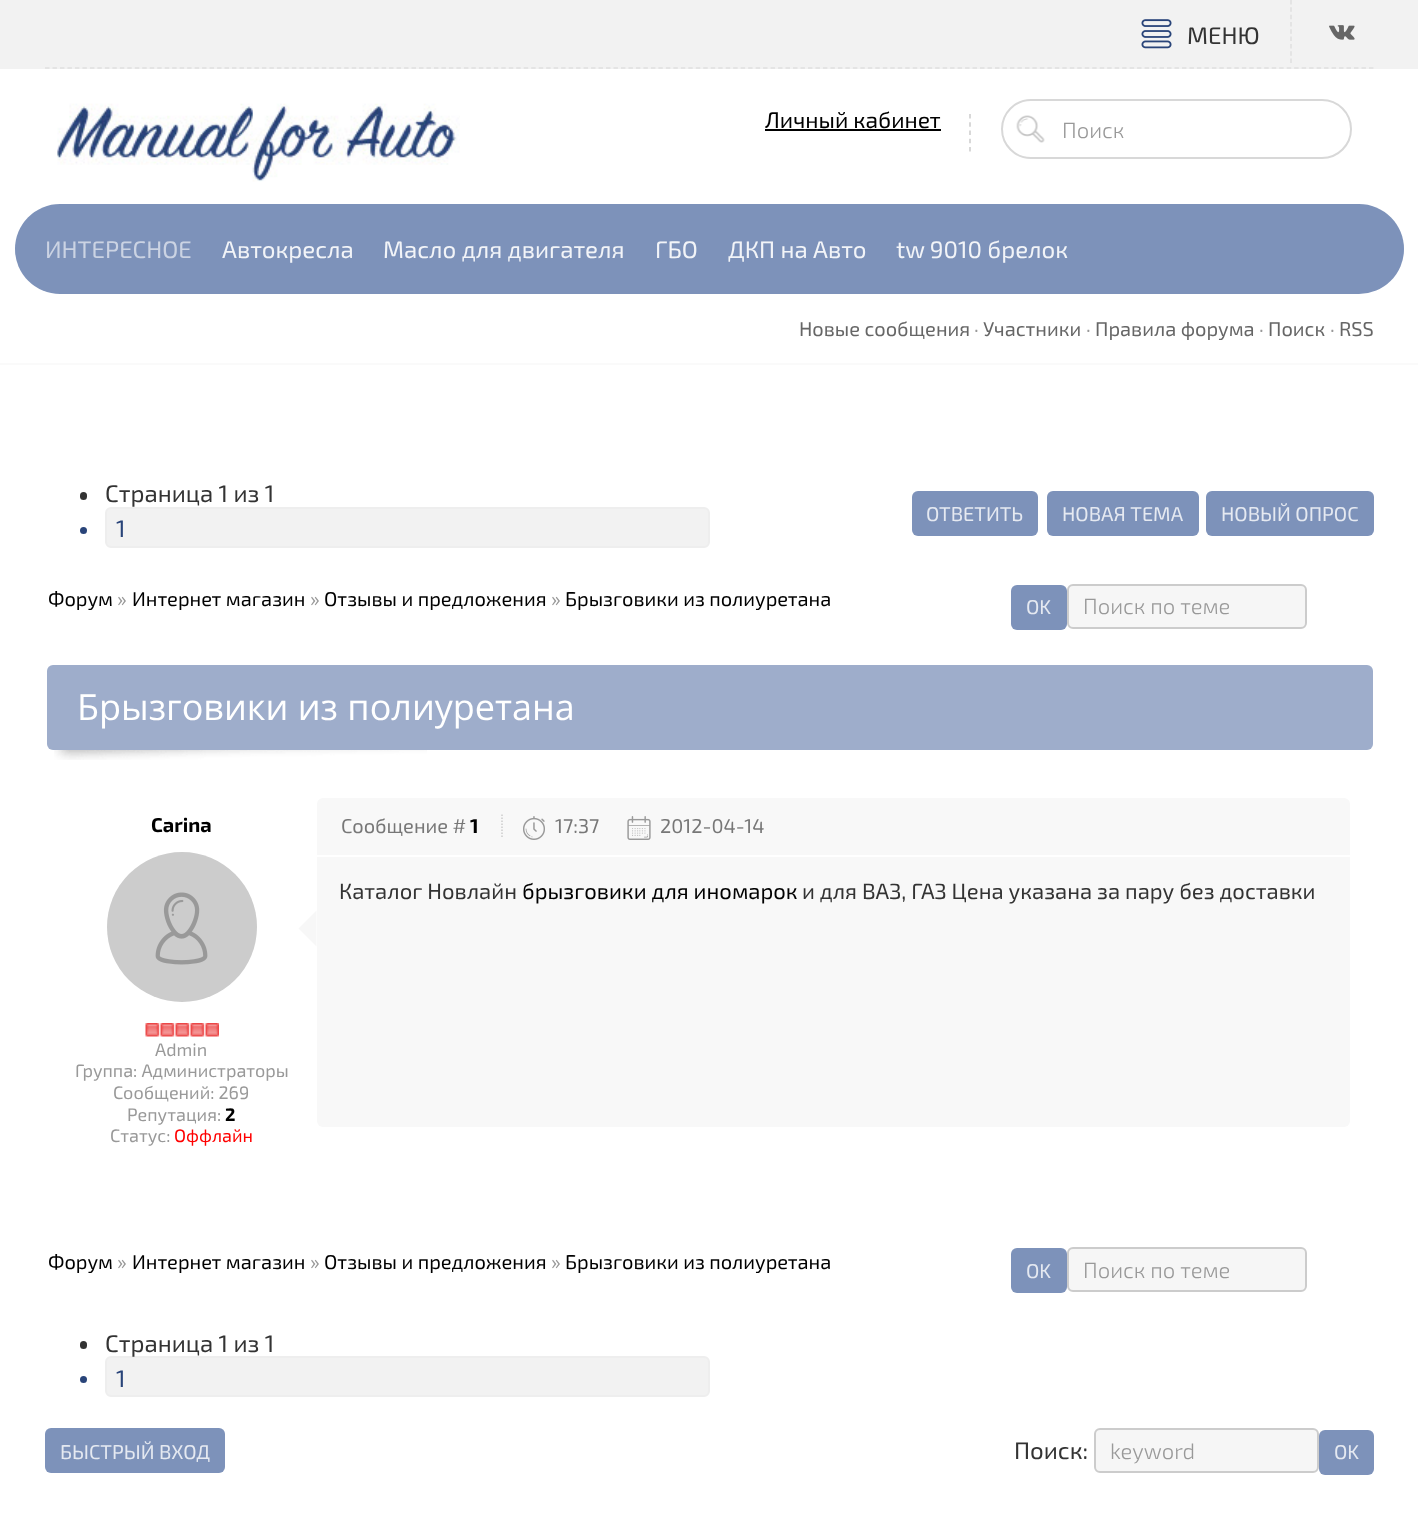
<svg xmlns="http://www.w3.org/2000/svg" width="1418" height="1520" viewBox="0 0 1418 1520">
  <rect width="100%" height="100%" fill="rgb(255,255,255)"/>
  <rect x="0" y="0" width="1418" height="69" fill="rgb(242,242,242)"/>
  <image x="1141" y="19" width="31" height="30" href="pic1.png"/>
  <text x="1187" y="44" font-family="'Exo 2'" font-size="24" fill="rgb(51,51,51)">МЕНЮ</text>
  <path d="M1291 0V63" fill="none" stroke="rgb(224,224,224)" stroke-width="1.5" stroke-dasharray="4.5 2.82"/>
  <image x="1329" y="25" width="26" height="15" href="pic2.png"/>
  <path d="M45 68H1374" fill="none" stroke="rgb(224,224,224)" stroke-width="1.5" stroke-dasharray="4.5 2.98"/>
  <image x="57" y="103" width="403" height="79" href="pic3.png"/>
  <text x="765" y="128" font-family="'Exo 2'" font-size="22.75" fill="rgb(0,0,0)">Личный кабинет</text>
  <rect x="765" y="129" width="176" height="2" fill="rgb(0,0,0)"/>
  <path d="M970 114V151.5" fill="none" stroke="rgb(204,204,204)" stroke-width="1.5" stroke-dasharray="4.5 3.75"/>
  <rect x="1002" y="100" width="349" height="58" rx="29" fill="none" stroke="rgb(216,216,216)" stroke-width="2"/>
  <image x="1016" y="115" width="29" height="28" href="pic4.png"/>
  <text x="1062" y="138" font-family="'Exo 2'" font-size="22" font-weight="300" fill="rgb(153,153,153)">Поиск</text>
  <rect x="15" y="204" width="1389" height="90" rx="45" fill="rgb(125,146,186)"/>
  <text x="45" y="258" font-family="'Exo 2'" font-size="24" fill="rgb(203,211,227)">ИНТЕРЕСНОЕ</text>
  <g font-family="'Exo 2'" font-size="24" fill="rgb(242,244,248)">
    <text x="222" y="258">Автокресла</text>
    <text x="383" y="258">Масло для двигателя</text>
    <text x="655" y="258">ГБО</text>
    <text x="728" y="258">ДКП на Авто</text>
    <text x="896" y="258">tw 9010 брелок</text>
  </g>
  <rect x="0" y="363" width="1418" height="2" fill="rgb(250,250,250)"/>
  <text x="799" y="336" font-family="'Exo 2'" font-size="20" fill="rgb(102,102,102)">Новые сообщения</text>
  <text x="974" y="336" font-family="'Exo 2'" font-size="20" fill="rgb(153,153,153)">·</text>
  <text x="983" y="336" font-family="'Exo 2'" font-size="20" fill="rgb(102,102,102)">Участники</text>
  <text x="1086" y="336" font-family="'Exo 2'" font-size="20" fill="rgb(153,153,153)">·</text>
  <text x="1095" y="336" font-family="'Exo 2'" font-size="20" fill="rgb(102,102,102)">Правила форума</text>
  <text x="1259" y="336" font-family="'Exo 2'" font-size="20" fill="rgb(153,153,153)">·</text>
  <text x="1268" y="336" font-family="'Exo 2'" font-size="20" fill="rgb(102,102,102)">Поиск</text>
  <text x="1330" y="336" font-family="'Exo 2'" font-size="20" fill="rgb(153,153,153)">·</text>
  <text x="1339" y="336" font-family="'Exo 2'" font-size="20" fill="rgb(102,102,102)">RSS</text>
  <rect x="80" y="492" width="7" height="8" rx="3.5" fill="rgb(51,51,51)"/>
  <text x="105" y="502" font-family="'Exo 2'" font-size="24" fill="rgb(51,51,51)">Страница 1 из 1</text>
  <rect x="106" y="508" width="603" height="39" rx="5" fill="rgb(242,242,242)" stroke="rgb(238,238,238)" stroke-width="2"/>
  <circle cx="83.5" cy="530.5" r="3.5" fill="rgb(41,68,121)"/>
  <text x="116" y="537" font-family="'Exo 2'" font-size="24" fill="rgb(41,68,121)">1</text>
  <rect x="912" y="491" width="126" height="45" rx="6" fill="rgb(125,146,186)"/>
  <text x="926" y="521" font-family="'Exo 2'" font-size="20" fill="rgb(229,233,241)">ОТВЕТИТЬ</text>
  <rect x="1047" y="491" width="152" height="45" rx="6" fill="rgb(125,146,186)"/>
  <text x="1062" y="521" font-family="'Exo 2'" font-size="20" fill="rgb(229,233,241)">НОВАЯ ТЕМА</text>
  <rect x="1206" y="491" width="168" height="45" rx="6" fill="rgb(125,146,186)"/>
  <text x="1221" y="521" font-family="'Exo 2'" font-size="20" fill="rgb(229,233,241)">НОВЫЙ ОПРОС</text>
  <text x="48" y="606" font-family="'Exo 2'" font-size="20" fill="rgb(0,0,0)">Форум</text>
  <text x="117" y="606" font-family="'Exo 2'" font-size="20" fill="rgb(153,153,153)">»</text>
  <text x="132" y="606" font-family="'Exo 2'" font-size="20" fill="rgb(0,0,0)">Интернет магазин</text>
  <text x="310" y="606" font-family="'Exo 2'" font-size="20" fill="rgb(153,153,153)">»</text>
  <text x="324" y="606" font-family="'Exo 2'" font-size="20" fill="rgb(0,0,0)">Отзывы и предложения</text>
  <text x="551" y="606" font-family="'Exo 2'" font-size="20" fill="rgb(153,153,153)">»</text>
  <text x="565" y="606" font-family="'Exo 2'" font-size="20" fill="rgb(0,0,0)">Брызговики из полиуретана</text>
  <rect x="1011" y="585" width="56" height="45" rx="6" fill="rgb(125,146,186)"/>
  <text x="1026" y="614" font-family="'Exo 2'" font-size="20" fill="rgb(229,233,241)">OK</text>
  <rect x="1068" y="585" width="238" height="43" rx="5" fill="rgb(246,246,246)" stroke="rgb(204,204,204)" stroke-width="2"/>
  <text x="1083" y="614" font-family="'Exo 2'" font-size="22" font-weight="300" fill="rgb(153,153,153)">Поиск по теме</text>
  <rect x="47" y="665" width="1326" height="85" rx="6" fill="rgb(158,173,203)"/>
  <text x="77" y="720" font-family="Open Sans" font-size="36" fill="rgb(255,255,255)">Брызговики из полиуретана</text>
  <image x="54" y="750" width="373" height="10" href="pic5.png"/>
  <text x="151" y="832" font-family="'Exo 2'" font-size="20" font-weight="bold" fill="rgb(0,0,0)">Carina</text>
  <circle cx="182" cy="927" r="75" fill="rgb(204,204,204)"/>
  <image x="155" y="892" width="53" height="73" href="pic6.png"/>
  <image x="145" y="1023" width="74" height="14" href="pic7.png"/>
  <g font-family="'Exo 2'" font-size="18" fill="rgb(153,153,153)">
    <text x="155" y="1056">Admin</text>
    <text x="75" y="1077">Группа: Администраторы</text>
    <text x="113" y="1099">Сообщений: 269</text>
    <text x="127" y="1121">Репутация:</text>
  </g>
  <text x="225" y="1121" font-family="'Exo 2'" font-size="18" font-weight="bold" fill="rgb(0,0,0)">2</text>
  <text x="110" y="1142" font-family="'Exo 2'" font-size="18" fill="rgb(153,153,153)">Статус:</text>
  <text x="174" y="1142" font-family="'Exo 2'" font-size="18" fill="rgb(255,0,0)">Оффлайн</text>
  <rect x="317" y="798" width="1033" height="329" rx="6" fill="rgb(248,248,248)"/>
  <rect x="317" y="855" width="1033" height="2" fill="rgb(255,255,255)"/>
  <text x="341" y="833" font-family="'Exo 2'" font-size="20" fill="rgb(119,119,119)">Сообщение #</text>
  <text x="470" y="833" font-family="'Exo 2'" font-size="20" font-weight="bold" fill="rgb(0,0,0)">1</text>
  <path d="M502 814.5V838.5" fill="none" stroke="rgb(204,204,204)" stroke-width="1.5" stroke-dasharray="1.5 1.5"/>
  <image x="523" y="816" width="22" height="24" href="pic8.png"/>
  <text x="555" y="833" font-family="'Exo 2'" font-size="20" fill="rgb(119,119,119)">17:37</text>
  <image x="627" y="816" width="24" height="24" href="pic9.png"/>
  <text x="660" y="833" font-family="'Exo 2'" font-size="20" fill="rgb(119,119,119)">2012-04-14</text>
  <text x="339" y="899" font-family="'Exo 2'" font-size="22" fill="rgb(51,51,51)">Каталог Новлайн</text>
  <text x="522" y="899" font-family="'Exo 2'" font-size="22" fill="rgb(0,0,0)">брызговики для иномарок</text>
  <text x="802" y="899" font-family="'Exo 2'" font-size="22" fill="rgb(51,51,51)">и для ВАЗ, ГАЗ Цена указана за пару без доставки</text>
  <path d="M316.5 910.5V946.5L298.5 928.5Z" fill="rgb(247,247,247)"/>
  <text x="48" y="1269" font-family="'Exo 2'" font-size="20" fill="rgb(0,0,0)">Форум</text>
  <text x="117" y="1269" font-family="'Exo 2'" font-size="20" fill="rgb(153,153,153)">»</text>
  <text x="132" y="1269" font-family="'Exo 2'" font-size="20" fill="rgb(0,0,0)">Интернет магазин</text>
  <text x="310" y="1269" font-family="'Exo 2'" font-size="20" fill="rgb(153,153,153)">»</text>
  <text x="324" y="1269" font-family="'Exo 2'" font-size="20" fill="rgb(0,0,0)">Отзывы и предложения</text>
  <text x="551" y="1269" font-family="'Exo 2'" font-size="20" fill="rgb(153,153,153)">»</text>
  <text x="565" y="1269" font-family="'Exo 2'" font-size="20" fill="rgb(0,0,0)">Брызговики из полиуретана</text>
  <rect x="1011" y="1248" width="56" height="45" rx="6" fill="rgb(125,146,186)"/>
  <text x="1026" y="1278" font-family="'Exo 2'" font-size="20" fill="rgb(229,233,241)">OK</text>
  <rect x="1068" y="1248" width="238" height="43" rx="5" fill="rgb(246,246,246)" stroke="rgb(204,204,204)" stroke-width="2"/>
  <text x="1083" y="1278" font-family="'Exo 2'" font-size="22" font-weight="300" fill="rgb(153,153,153)">Поиск по теме</text>
  <rect x="80" y="1341" width="7" height="8" rx="3.5" fill="rgb(51,51,51)"/>
  <rect x="106" y="1357" width="603" height="39" rx="5" fill="rgb(242,242,242)" stroke="rgb(238,238,238)" stroke-width="2"/>
  <text x="105" y="1352" font-family="'Exo 2'" font-size="24" fill="rgb(51,51,51)">Страница 1 из 1</text>
  <circle cx="83.5" cy="1379.5" r="3.5" fill="rgb(41,68,121)"/>
  <text x="116" y="1387" font-family="'Exo 2'" font-size="24" fill="rgb(41,68,121)">1</text>
  <rect x="45" y="1428" width="180" height="45" rx="6" fill="rgb(125,146,186)"/>
  <text x="60" y="1459" font-family="'Exo 2'" font-size="20" fill="rgb(229,233,241)">БЫСТРЫЙ ВХОД</text>
  <text x="1014" y="1459" font-family="'Exo 2'" font-size="24" fill="rgb(51,51,51)">Поиск:</text>
  <rect x="1095" y="1429" width="223" height="43" rx="5" fill="rgb(246,246,246)" stroke="rgb(204,204,204)" stroke-width="2"/>
  <text x="1110" y="1459" font-family="'Exo 2'" font-size="22" font-weight="300" fill="rgb(153,153,153)">keyword</text>
  <rect x="1319" y="1430" width="55" height="45" rx="6" fill="rgb(125,146,186)"/>
  <text x="1334" y="1459" font-family="'Exo 2'" font-size="20" fill="rgb(229,233,241)">OK</text>
</svg>
